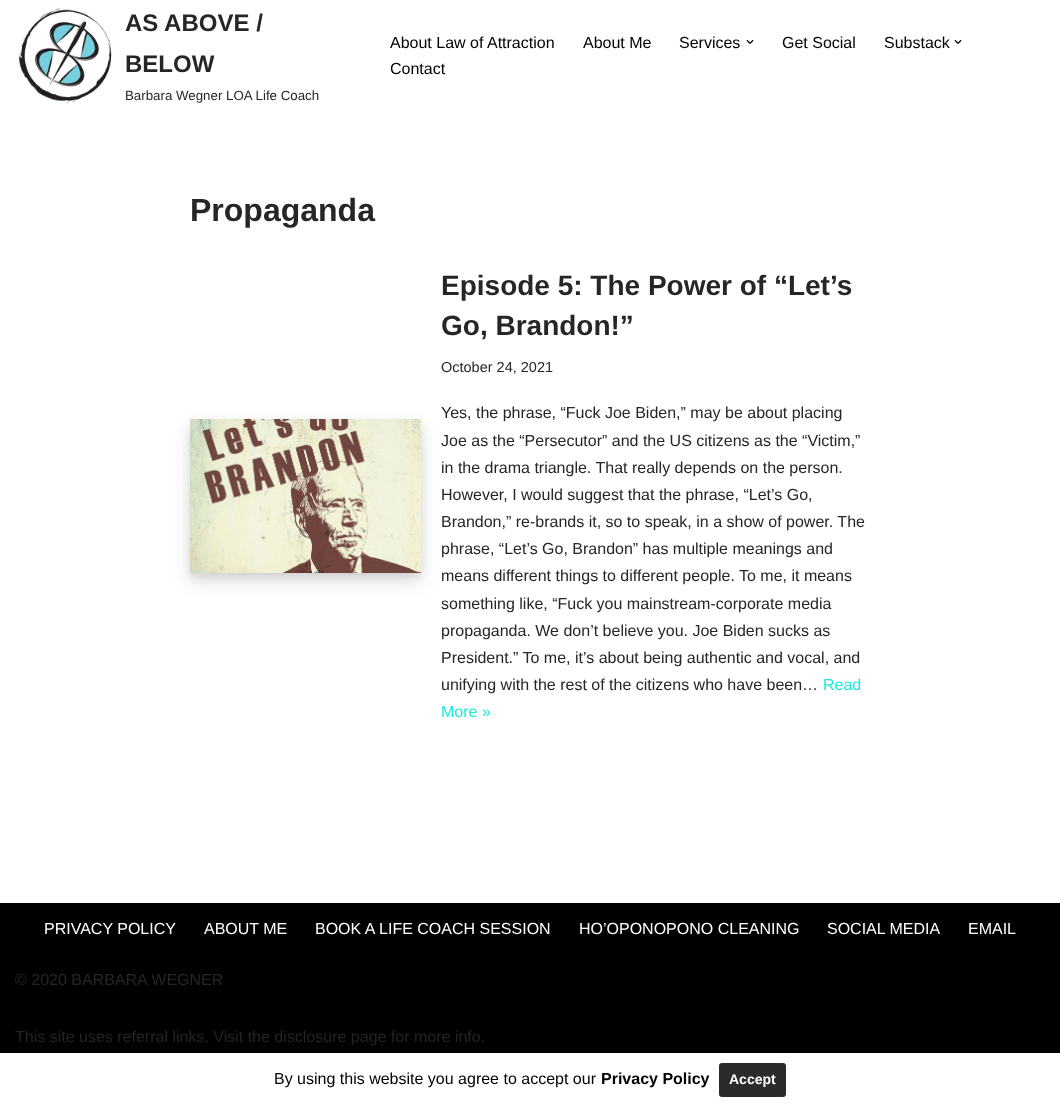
<svg xmlns="http://www.w3.org/2000/svg" width="1060" height="1107" viewBox="0 0 1060 1107">
  <rect width="100%" height="100%" fill="rgb(255,255,255)"/>
  <image x="19" y="8" width="93" height="96" href="pic1.png"/>
  <g font-family="Liberation Sans" font-size="24" font-weight="bold" fill="rgb(39,38,38)">
    <text>
      <tspan x="125" y="31">AS ABOVE /</tspan>
      <tspan x="125" y="72">BELOW</tspan>
    </text>
  </g>
  <text x="125" y="100" font-family="Liberation Sans" font-size="13.3" fill="rgb(39,38,38)">Barbara Wegner LOA Life Coach</text>
  <g font-family="Liberation Sans" font-size="16" fill="rgb(0,0,0)">
    <text x="390" y="48">About Law of Attraction</text>
    <text x="583" y="48">About Me</text>
    <text x="679" y="48">Services</text>
  </g>
  <image x="746" y="40" width="8" height="4" href="pic2.png"/>
  <g font-family="Liberation Sans" font-size="16" fill="rgb(0,0,0)">
    <text x="782" y="48">Get Social</text>
    <text x="884" y="48">Substack</text>
  </g>
  <image x="954" y="40" width="8" height="4" href="pic2.png"/>
  <text x="390" y="74" font-family="Liberation Sans" font-size="16" fill="rgb(0,0,0)">Contact</text>
  <text x="190" y="221" font-family="Liberation Sans" font-size="32" font-weight="bold" fill="rgb(39,38,38)">Propaganda</text>
  <rect x="190" y="423" width="231" height="154" fill="rgba(0,0,0,0.1)" filter="blur(4px)"/>
  <rect x="190" y="429" width="231" height="154" fill="rgba(0,0,0,0.1)" filter="blur(10px)"/>
  <image x="190" y="419" width="231" height="154" href="pic3.png"/>
  <g font-family="Liberation Sans" font-size="28" font-weight="bold" fill="rgb(39,38,38)">
    <text>
      <tspan x="441" y="295">Episode 5: The Power of “Let’s</tspan>
      <tspan x="441" y="335">Go, Brandon!”</tspan>
    </text>
  </g>
  <text x="441" y="372" font-family="Liberation Sans" font-size="14.5" fill="rgb(39,38,38)">October 24, 2021</text>
  <g font-family="Liberation Sans" font-size="16" fill="rgb(39,38,38)">
    <text>
      <tspan x="441" y="418">Yes, the phrase, “Fuck Joe Biden,” may be about placing</tspan>
      <tspan x="441" y="446">Joe as the “Persecutor” and the US citizens as the “Victim,”</tspan>
      <tspan x="441" y="473">in the drama triangle. That really depends on the person.</tspan>
      <tspan x="441" y="500">However, I would suggest that the phrase, “Let’s Go,</tspan>
      <tspan x="441" y="527">Brandon,” re-brands it, so to speak, in a show of power. The</tspan>
      <tspan x="441" y="554">phrase, “Let’s Go, Brandon” has multiple meanings and</tspan>
      <tspan x="441" y="581">means different things to different people. To me, it means</tspan>
      <tspan x="441" y="609">something like, “Fuck you mainstream-corporate media</tspan>
      <tspan x="441" y="636">propaganda. We don’t believe you. Joe Biden sucks as</tspan>
      <tspan x="441" y="663">President.” To me, it’s about being authentic and vocal, and</tspan>
      <tspan x="441" y="690">unifying with the rest of the citizens who have been…</tspan>
    </text>
  </g>
  <g font-family="Liberation Sans" font-size="16" fill="rgb(24,235,221)">
    <text x="823" y="690">Read</text>
    <text x="441" y="717">More »</text>
  </g>
  <rect x="0" y="903" width="1060" height="150" fill="rgb(0,0,0)"/>
  <g font-family="Liberation Sans" font-size="16" fill="rgb(255,255,255)">
    <text x="44" y="934">PRIVACY POLICY</text>
    <text x="204" y="934">ABOUT ME</text>
    <text x="315" y="934">BOOK A LIFE COACH SESSION</text>
    <text x="579" y="934">HO’OPONOPONO CLEANING</text>
    <text x="827" y="934">SOCIAL MEDIA</text>
    <text x="968" y="934">EMAIL</text>
  </g>
  <g font-family="Liberation Sans" font-size="16" fill="rgb(39,38,38)">
    <text x="15" y="985">© 2020 BARBARA WEGNER</text>
    <text x="15" y="1042">This site uses referral links. Visit the disclosure page for more info.</text>
  </g>
  <rect x="0" y="1051" width="1060" height="54" fill="rgba(0,0,0,0.75)" filter="blur(8.5px)"/>
  <rect x="0" y="1053" width="1060" height="54" fill="rgb(255,255,255)"/>
  <text x="274" y="1084" font-family="Liberation Sans" font-size="16" fill="rgb(0,0,0)">By using this website you agree to accept our</text>
  <text x="601" y="1084" font-family="Liberation Sans" font-size="16" font-weight="bold" fill="rgb(0,0,0)">Privacy Policy</text>
  <rect x="719" y="1063" width="67" height="34" rx="3" fill="rgb(43,43,43)"/>
  <text x="729" y="1084" font-family="Liberation Sans" font-size="14" font-weight="bold" fill="rgb(255,255,255)">Accept</text>
</svg>
